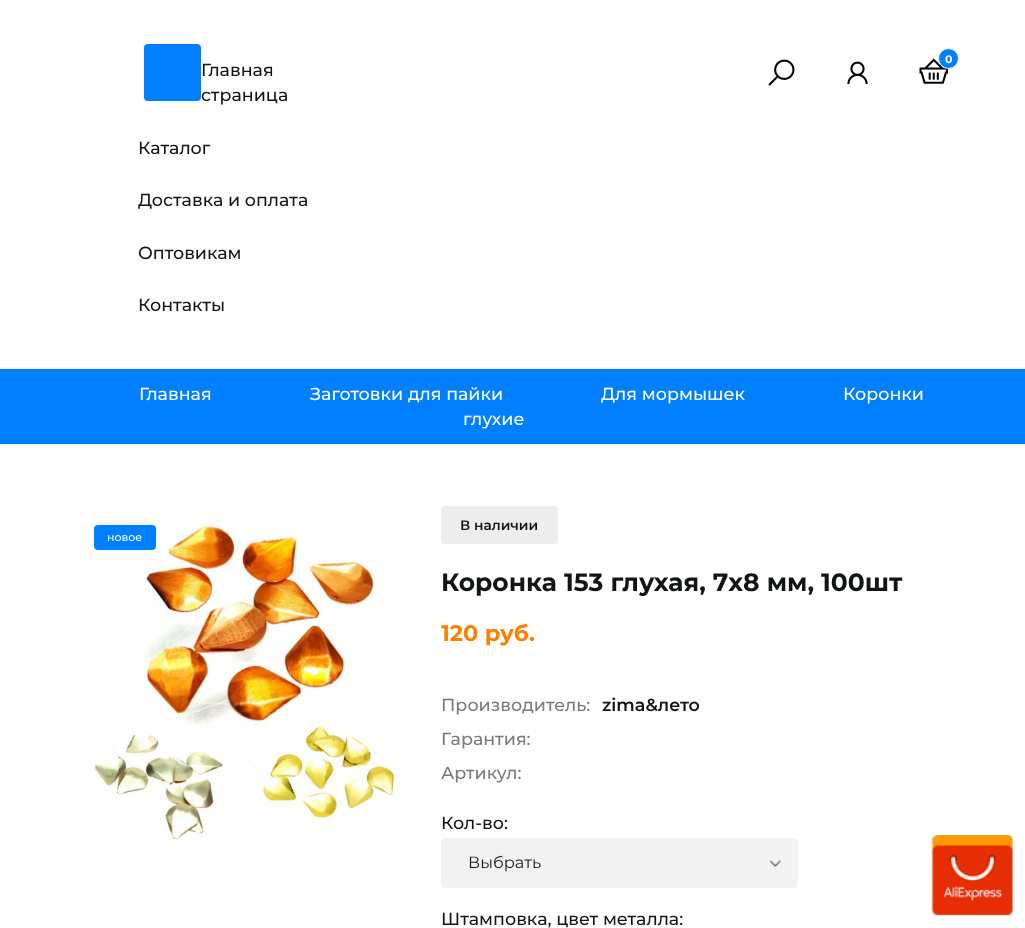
<svg xmlns="http://www.w3.org/2000/svg" width="1025" height="928" viewBox="0 0 1025 928">
  <rect width="100%" height="100%" fill="rgb(255,255,255)"/>
  <rect x="144" y="44" width="57" height="57" rx="4" fill="rgb(0,128,255)"/>
  <g font-family="Montserrat" font-size="17.5" font-weight="500" fill="rgb(18,21,21)">
    <text>
      <tspan x="201" y="76">Главная</tspan>
      <tspan x="201" y="101">страница</tspan>
    </text>
    <text x="138" y="154">Каталог</text>
    <text x="138" y="206">Доставка и оплата</text>
    <text x="138" y="259">Оптовикам</text>
    <text x="138" y="311">Контакты</text>
  </g>
  <image x="768" y="59" width="27" height="27" href="pic1.png"/>
  <image x="847" y="61" width="21" height="23" href="pic2.png"/>
  <image x="919" y="58" width="29" height="26" href="pic3.png"/>
  <circle cx="948.5" cy="58.5" r="10" fill="rgb(0,128,255)" stroke="rgb(255,255,255)"/>
  <text x="945" y="63" font-family="Montserrat" font-size="11" font-weight="bold" fill="rgb(255,255,255)">0</text>
  <rect x="0" y="369" width="1025" height="75" fill="rgb(0,128,255)"/>
  <g font-family="Montserrat" font-size="17.5" font-weight="500" fill="rgb(255,255,255)">
    <text x="139" y="400">Главная</text>
    <text x="310" y="400">Заготовки для пайки</text>
    <text x="601" y="400">Для мормышек</text>
    <text x="843" y="400">Коронки</text>
    <text x="463" y="425">глухие</text>
  </g>
  <image x="88" y="517" width="313" height="325" href="pic4.png"/>
  <rect x="94" y="525" width="62" height="25" rx="4" fill="rgb(0,128,255)"/>
  <text x="107" y="541" font-family="Montserrat" font-size="11" font-weight="500" fill="rgb(255,255,255)">новое</text>
  <rect x="441" y="506" width="117" height="38" rx="4" fill="rgb(237,237,237)"/>
  <text x="460" y="530" font-family="Montserrat" font-size="13.75" font-weight="600" fill="rgb(18,21,21)">В наличии</text>
  <text x="441" y="591" font-family="Montserrat" font-size="25" font-weight="bold" fill="rgb(18,21,21)">Коронка 153 глухая, 7х8 мм, 100шт</text>
  <text x="441" y="641" font-family="Montserrat" font-size="22.5" font-weight="bold" fill="rgb(255,127,0)">120 руб.</text>
  <text x="441" y="711" font-family="Montserrat" font-size="17.5" font-weight="500" fill="rgb(122,122,122)">Производитель:</text>
  <text x="602" y="711" font-family="Montserrat" font-size="17.5" font-weight="600" fill="rgb(18,21,21)">zima&amp;лето</text>
  <g font-family="Montserrat" font-size="17.5" font-weight="500" fill="rgb(122,122,122)">
    <text>
      <tspan x="441" y="745">Гарантия:</tspan>
      <tspan x="441" y="779">Артикул:</tspan>
    </text>
  </g>
  <text x="441" y="829" font-family="Montserrat" font-size="17.5" font-weight="500" fill="rgb(18,21,21)">Кол-во:</text>
  <rect x="441" y="838" width="357" height="50" rx="4" fill="rgb(242,242,242)"/>
  <image x="770" y="860" width="12" height="7" href="pic5.png"/>
  <text x="468" y="868" font-family="Montserrat" font-size="16.25" fill="rgb(18,21,21)">Выбрать</text>
  <text x="441" y="925" font-family="Montserrat" font-size="17.5" font-weight="500" fill="rgb(18,21,21)">Штамповка, цвет металла:</text>
  <rect x="931" y="835" width="82" height="81" rx="4" fill="rgb(237,237,237)"/>
  <image x="932" y="835" width="81" height="80" href="pic6.png"/>
</svg>
